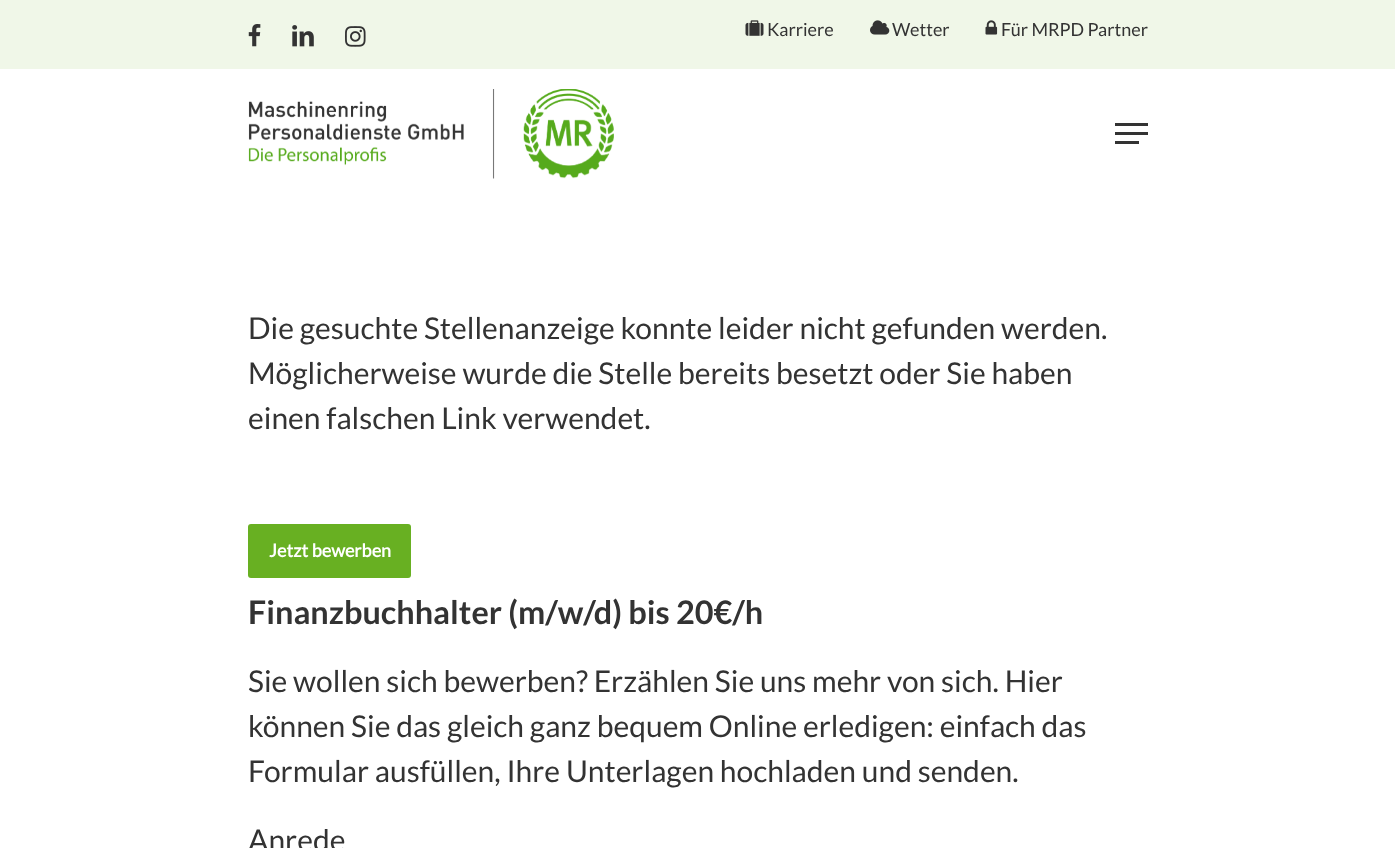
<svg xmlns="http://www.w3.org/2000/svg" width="1395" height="848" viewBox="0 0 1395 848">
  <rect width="100%" height="100%" fill="rgb(255,255,255)"/>
  <rect x="0" y="0" width="1395" height="69" fill="rgb(240,247,232)"/>
  <image x="248" y="24" width="13" height="23" href="pic1.png"/>
  <image x="292" y="25" width="22" height="22" href="pic2.png"/>
  <image x="345" y="26" width="21" height="21" href="pic3.png"/>
  <image x="745" y="20" width="19" height="16" href="pic4.png"/>
  <text x="767" y="36" font-family="Lato" font-size="18" fill="rgb(51,51,51)">Karriere</text>
  <image x="870" y="20" width="20" height="15" href="pic5.png"/>
  <text x="892" y="36" font-family="Lato" font-size="18" fill="rgb(51,51,51)">Wetter</text>
  <image x="985" y="20" width="13" height="15" href="pic6.png"/>
  <text x="1001" y="36" font-family="Lato" font-size="18" fill="rgb(51,51,51)">Für MRPD Partner</text>
  <image x="248" y="89" width="366" height="90" href="pic7.png"/>
  <rect x="1115" y="123" width="33" height="3" fill="rgb(51,51,51)"/>
  <rect x="1115" y="141" width="24" height="3" fill="rgb(51,51,51)"/>
  <rect x="1115" y="132" width="33" height="3" fill="rgb(51,51,51)"/>
  <g font-family="Lato" font-size="30" fill="rgb(51,51,51)">
    <text>
      <tspan x="248" y="339">Die gesuchte Stellenanzeige konnte leider nicht gefunden werden.</tspan>
      <tspan x="248" y="384">Möglicherweise wurde die Stelle bereits besetzt oder Sie haben</tspan>
      <tspan x="248" y="429">einen falschen Link verwendet.</tspan>
    </text>
  </g>
  <rect x="248" y="524" width="163" height="54" rx="3" fill="rgb(104,176,34)"/>
  <text x="269" y="557" font-family="Lato" font-size="18" font-weight="bold" fill="rgb(255,255,255)">Jetzt bewerben</text>
  <text x="248" y="624" font-family="'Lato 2'" font-size="32.4" font-weight="bold" fill="rgb(51,51,51)">Finanzbuchhalter (m/w/d) bis 20€/h</text>
  <g font-family="Lato" font-size="30" fill="rgb(51,51,51)">
    <text>
      <tspan x="248" y="692">Sie wollen sich bewerben? Erzählen Sie uns mehr von sich. Hier</tspan>
      <tspan x="248" y="737">können Sie das gleich ganz bequem Online erledigen: einfach das</tspan>
      <tspan x="248" y="782">Formular ausfüllen, Ihre Unterlagen hochladen und senden.</tspan>
    </text>
    <text x="248" y="851">Anrede</text>
  </g>
</svg>
